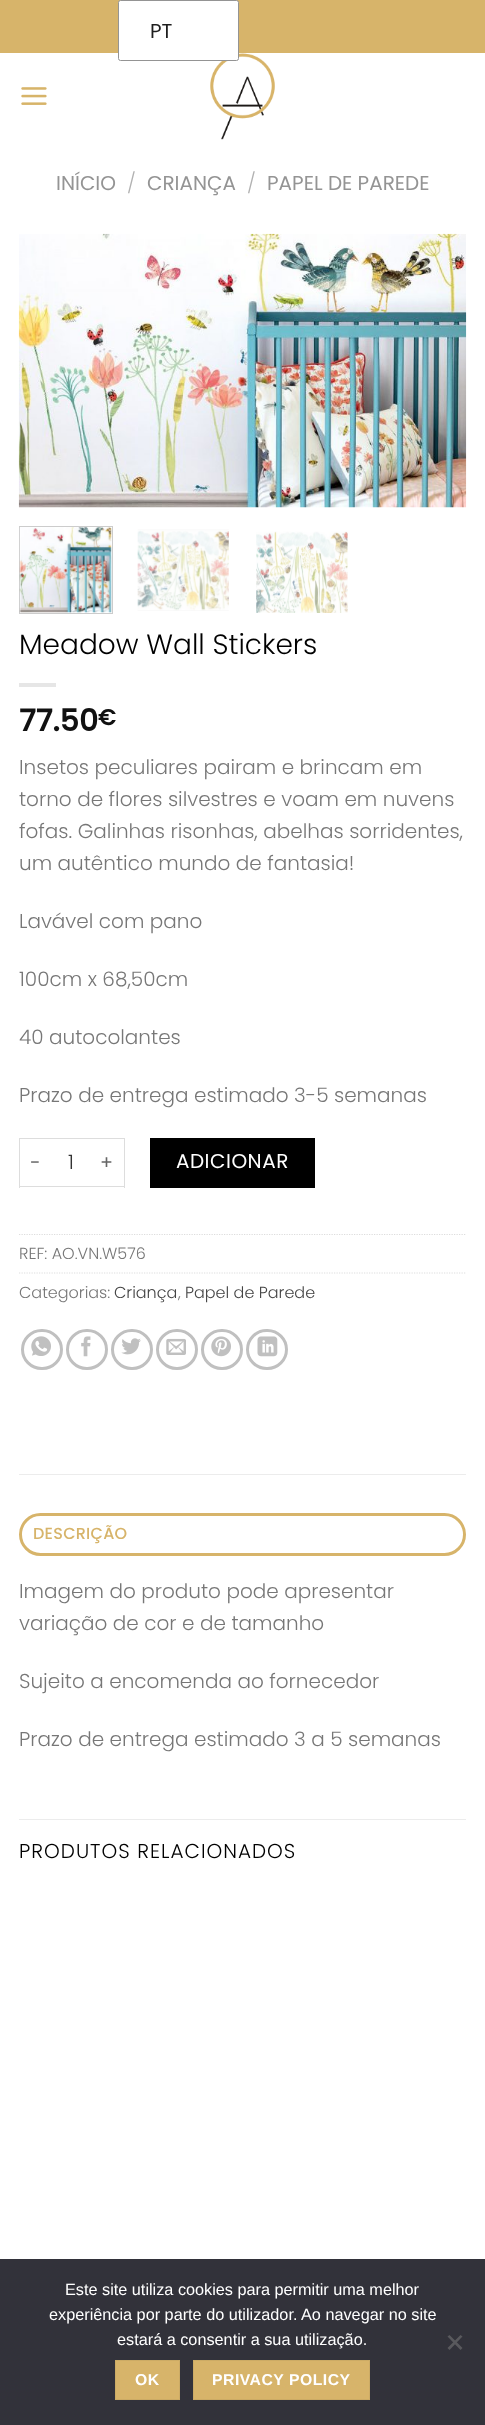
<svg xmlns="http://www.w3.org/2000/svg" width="485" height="2425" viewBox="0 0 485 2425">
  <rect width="100%" height="100%" fill="rgb(255,255,255)"/>
  <rect x="0" y="0" width="485" height="53" fill="rgb(215,180,106)"/>
  <image x="210" y="53" width="65" height="87" href="pic2.png"/>
  <rect x="118.5" y="0.5" width="120" height="60" rx="2" fill="rgb(255,255,255)" stroke="rgb(148,148,148)"/>
  <text x="150" y="38" font-family="Poppins" font-size="20" fill="rgb(30,30,30)">PT</text>
  <image x="21" y="87" width="26" height="18" href="pic1.png"/>
  <text x="56" y="190" font-family="Poppins" font-size="20" fill="rgb(148,148,148)">INÍCIO</text>
  <text x="127" y="190" font-family="Poppins" font-size="20" font-weight="300" fill="rgb(178,178,178)">/</text>
  <text x="147" y="190" font-family="Poppins" font-size="20" fill="rgb(148,148,148)">CRIANÇA</text>
  <text x="247" y="190" font-family="Poppins" font-size="20" font-weight="300" fill="rgb(178,178,178)">/</text>
  <text x="267" y="190" font-family="Poppins" font-size="20" fill="rgb(148,148,148)">PAPEL DE PAREDE</text>
  <image x="18" y="233" width="449" height="275" href="pic3.png"/>
  <rect x="19.5" y="526.5" width="93" height="87" fill="none" stroke="rgb(204,204,204)"/>
  <image x="19" y="527" width="93" height="86" href="pic4.png"/>
  <image x="137" y="529" width="92" height="82" href="pic5.png"/>
  <image x="256" y="531" width="92" height="82" href="pic6.png"/>
  <text x="19" y="654" font-family="Poppins" font-size="28" font-weight="300" fill="rgb(0,0,0)">Meadow Wall Stickers</text>
  <rect x="19" y="683" width="37" height="4" fill="rgb(230,230,230)"/>
  <text x="19" y="731" font-family="Poppins" font-size="30" font-weight="bold" fill="rgb(17,17,17)">77.50</text>
  <text x="98" y="725" font-family="Poppins" font-size="22" font-weight="bold" fill="rgb(17,17,17)">€</text>
  <g font-family="Poppins" font-size="20" font-weight="300" fill="rgb(119,119,119)">
    <text>
      <tspan x="19" y="774">Insetos peculiares pairam e brincam em</tspan>
      <tspan x="19" y="806">torno de flores silvestres e voam em nuvens</tspan>
      <tspan x="19" y="838">fofas. Galinhas risonhas, abelhas sorridentes,</tspan>
      <tspan x="19" y="870">um autêntico mundo de fantasia!</tspan>
    </text>
    <text x="19" y="928">Lavável com pano</text>
    <text x="19" y="986">100cm x 68,50cm</text>
    <text x="19" y="1044">40 autocolantes</text>
    <text x="19" y="1102">Prazo de entrega estimado 3-5 semanas</text>
  </g>
  <rect x="19" y="1138" width="106" height="1" fill="rgb(221,221,221)"/>
  <rect x="19" y="1186" width="72" height="1" fill="rgb(221,221,221)"/>
  <rect x="19" y="1138" width="1" height="50" fill="rgb(221,221,221)"/>
  <text x="30" y="1169" font-family="Poppins" font-size="19" letter-spacing="1" fill="rgb(102,102,102)">-</text>
  <text x="68" y="1169" font-family="Poppins" font-size="20" font-weight="300" fill="rgb(51,51,51)">1</text>
  <rect x="124" y="1138" width="1" height="50" fill="rgb(221,221,221)"/>
  <rect x="91" y="1186" width="34" height="1" fill="rgb(221,221,221)"/>
  <text x="100" y="1169" font-family="Poppins" font-size="19" letter-spacing="1" fill="rgb(102,102,102)">+</text>
  <rect x="150" y="1138" width="165" height="50" fill="rgb(0,0,0)"/>
  <text x="176" y="1168" font-family="Poppins" font-size="20" letter-spacing="0.5" fill="rgb(255,255,255)">ADICIONAR</text>
  <path d="M19 1234.5H466" fill="none" stroke="rgb(221,221,221)" stroke-width="1.2" stroke-dasharray="1.25 1.25"/>
  <text x="19" y="1259" font-family="Poppins" font-size="16" font-weight="300" fill="rgb(119,119,119)">REF: AO.VN.W576</text>
  <path d="M19 1273H466" fill="none" stroke="rgb(221,221,221)" stroke-width="1.2" stroke-dasharray="1.25 1.25"/>
  <text x="19" y="1298" font-family="Poppins" font-size="16" font-weight="300" fill="rgb(119,119,119)">Categorias:</text>
  <text x="114" y="1298" font-family="Poppins" font-size="16" font-weight="300" fill="rgb(68,68,68)">Criança</text>
  <text x="178" y="1298" font-family="Poppins" font-size="16" font-weight="300" fill="rgb(119,119,119)">,</text>
  <text x="185" y="1298" font-family="Poppins" font-size="16" font-weight="300" fill="rgb(68,68,68)">Papel de Parede</text>
  <rect x="22.5" y="1330.5" width="39" height="38" rx="19" fill="none" stroke="rgb(192,192,192)" stroke-width="3"/>
  <image x="31" y="1336" width="20" height="20" href="pic7.png"/>
  <rect x="67.5" y="1330.5" width="39" height="38" rx="19" fill="none" stroke="rgb(192,192,192)" stroke-width="3"/>
  <image x="81" y="1336" width="10" height="21" href="pic8.png"/>
  <rect x="112.5" y="1330.5" width="39" height="38" rx="19" fill="none" stroke="rgb(192,192,192)" stroke-width="3"/>
  <image x="121" y="1338" width="20" height="17" href="pic9.png"/>
  <rect x="157.5" y="1330.5" width="39" height="38" rx="19" fill="none" stroke="rgb(192,192,192)" stroke-width="3"/>
  <image x="166" y="1338" width="20" height="17" href="pic10.png"/>
  <rect x="202.5" y="1330.5" width="39" height="38" rx="19" fill="none" stroke="rgb(192,192,192)" stroke-width="3"/>
  <image x="211" y="1336" width="20" height="21" href="pic11.png"/>
  <rect x="247.5" y="1330.5" width="39" height="38" rx="19" fill="none" stroke="rgb(192,192,192)" stroke-width="3"/>
  <image x="257" y="1336" width="21" height="21" href="pic12.png"/>
  <rect x="19" y="1474" width="447" height="1" fill="rgb(236,236,236)"/>
  <rect x="20.5" y="1514.5" width="444" height="40" rx="20" fill="none" stroke="rgb(215,180,106)" stroke-width="3"/>
  <text x="33" y="1539" font-family="Poppins" font-size="16" font-weight="500" letter-spacing="0.25" fill="rgb(215,180,106)">DESCRIÇÃO</text>
  <g font-family="Poppins" font-size="20" font-weight="300" fill="rgb(119,119,119)">
    <text>
      <tspan x="19" y="1598">Imagem do produto pode apresentar</tspan>
      <tspan x="19" y="1630">variação de cor e de tamanho</tspan>
    </text>
    <text x="19" y="1688">Sujeito a encomenda ao fornecedor</text>
    <text x="19" y="1746">Prazo de entrega estimado 3 a 5 semanas</text>
  </g>
  <rect x="19" y="1819" width="447" height="1" fill="rgb(236,236,236)"/>
  <text x="19" y="1858" font-family="Poppins" font-size="20" font-weight="300" letter-spacing="1" fill="rgb(0,0,0)">PRODUTOS RELACIONADOS</text>
  <rect x="0" y="2259" width="485" height="166" fill="rgb(50,50,58)"/>
  <g font-family="Liberation Sans" font-size="16.25" fill="rgb(255,255,255)">
    <text x="65" y="2295">Este site utiliza cookies para permitir uma melhor</text>
    <text x="49" y="2320">experiência por parte do utilizador. Ao navegar no site</text>
    <text x="117" y="2345">estará a consentir a sua utilização.</text>
  </g>
  <path d="M460.5 2335L462.5 2336.5L449.5 2350L447.5 2348Z" fill="rgb(89,89,93)"/>
  <path d="M447.5 2336.5L449.5 2335L462.5 2348L460.5 2350Z" fill="rgb(89,89,93)"/>
  <rect x="115.5" y="2360.5" width="64" height="39" fill="rgb(215,180,106)" stroke="rgb(204,171,101)"/>
  <text x="135" y="2385" font-family="Liberation Sans" font-size="15.75" font-weight="bold" letter-spacing="0.5" fill="rgb(255,255,255)">OK</text>
  <rect x="193.5" y="2360.5" width="176" height="39" fill="rgb(215,180,106)" stroke="rgb(204,171,101)"/>
  <text x="212" y="2385" font-family="Liberation Sans" font-size="15.75" font-weight="bold" letter-spacing="0.5" fill="rgb(255,255,255)">PRIVACY POLICY</text>
</svg>
